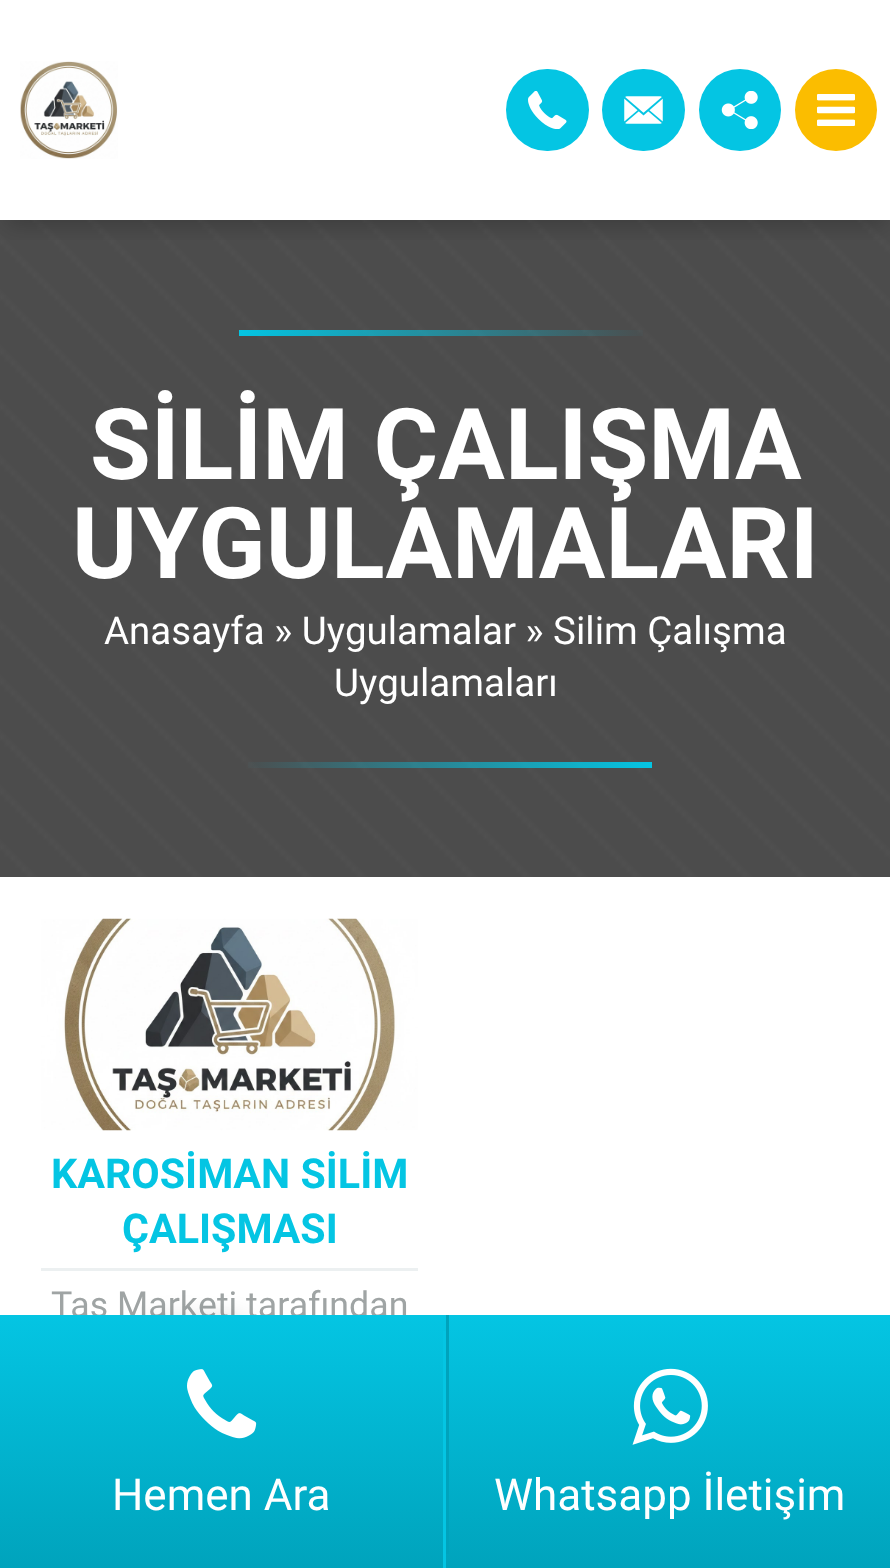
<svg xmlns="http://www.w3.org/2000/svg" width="890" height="1568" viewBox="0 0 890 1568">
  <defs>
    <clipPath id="clip1"><rect x="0" y="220" width="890" height="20"/></clipPath>
    <linearGradient id="g1" gradientUnits="userSpaceOnUse" x1="239" y1="333" x2="652" y2="333"><stop offset="0" stop-color="rgb(4,197,227)"/><stop offset="1" stop-color="rgb(4,197,227)" stop-opacity="0"/></linearGradient>
    <linearGradient id="g2" gradientUnits="userSpaceOnUse" x1="239" y1="765" x2="652" y2="765"><stop offset="0" stop-color="rgb(4,197,227)" stop-opacity="0"/><stop offset="1" stop-color="rgb(4,197,227)"/></linearGradient>
    <linearGradient id="g3" gradientUnits="userSpaceOnUse" x1="446" y1="1315" x2="446" y2="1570"><stop offset="0" stop-color="rgb(4,197,227)"/><stop offset="1" stop-color="rgb(0,163,188)"/></linearGradient>
  </defs>
  <rect width="100%" height="100%" fill="rgb(255,255,255)"/>
  <image x="0" y="220" width="890" height="657" href="pic6.png"/>
  <g clip-path="url(#clip1)">
    <rect x="6" y="17" width="880" height="209" fill="rgba(0,0,0,0.2)" filter="blur(11px)"/>
  </g>
  <image x="20" y="61" width="98" height="98" href="pic1.png"/>
  <rect x="506" y="69" width="83" height="82" rx="41" fill="rgb(4,197,227)"/>
  <image x="528" y="91" width="39" height="38" href="pic2.png"/>
  <rect x="602" y="69" width="83" height="82" rx="41" fill="rgb(4,197,227)"/>
  <image x="624" y="96" width="39" height="28" href="pic3.png"/>
  <circle cx="740" cy="110" r="41" fill="rgb(4,197,227)"/>
  <image x="721" y="91" width="37" height="38" href="pic4.png"/>
  <circle cx="836" cy="110" r="41" fill="rgb(251,189,0)"/>
  <image x="817" y="94" width="38" height="32" href="pic5.png"/>
  <rect x="239" y="330" width="404" height="6" fill="url(#g1)"/>
  <g font-family="Roboto" font-size="99" font-weight="bold" fill="rgb(255,255,255)">
    <text x="90" y="479">SİLİM ÇALIŞMA</text>
    <text x="72" y="578">UYGULAMALARI</text>
  </g>
  <g font-family="Roboto" font-size="38.5" fill="rgb(255,255,255)">
    <text x="104" y="644">Anasayfa » Uygulamalar » Silim Çalışma</text>
    <text x="334" y="696">Uygulamaları</text>
  </g>
  <rect x="248" y="762" width="404" height="6" fill="url(#g2)"/>
  <image x="41" y="918" width="377" height="213" href="pic7.png"/>
  <g font-family="Roboto" font-size="41.25" font-weight="bold" fill="rgb(4,197,227)">
    <text x="51" y="1188">KAROSİMAN SİLİM</text>
    <text x="122" y="1243">ÇALIŞMASI</text>
  </g>
  <rect x="41" y="1268" width="377" height="3" fill="rgb(236,240,241)"/>
  <text x="51" y="1317" font-family="Roboto" font-size="35.75" fill="rgb(159,164,164)">Taş Marketi tarafından</text>
  <rect x="110" y="1323" width="138" height="137" rx="68.5" fill="rgba(0,0,0,0.2)" filter="blur(14px)"/>
  <rect x="204" y="1323" width="44" height="44" rx="22" fill="rgba(0,0,0,0.28)" filter="blur(14px)"/>
  <rect x="0" y="1315" width="890" height="253" fill="url(#g3)"/>
  <rect x="443" y="1331" width="3" height="237" fill="rgb(4,197,227)"/>
  <image x="187" y="1369" width="70" height="70" href="pic8.png"/>
  <text x="112" y="1510" font-family="Roboto" font-size="44" fill="rgb(255,255,255)">Hemen Ara</text>
  <rect x="446" y="1315" width="3" height="239" fill="rgb(0,163,188)"/>
  <image x="632" y="1368" width="76" height="77" href="pic9.png"/>
  <text x="494" y="1510" font-family="Roboto" font-size="44" fill="rgb(255,255,255)">Whatsapp İletişim</text>
</svg>
